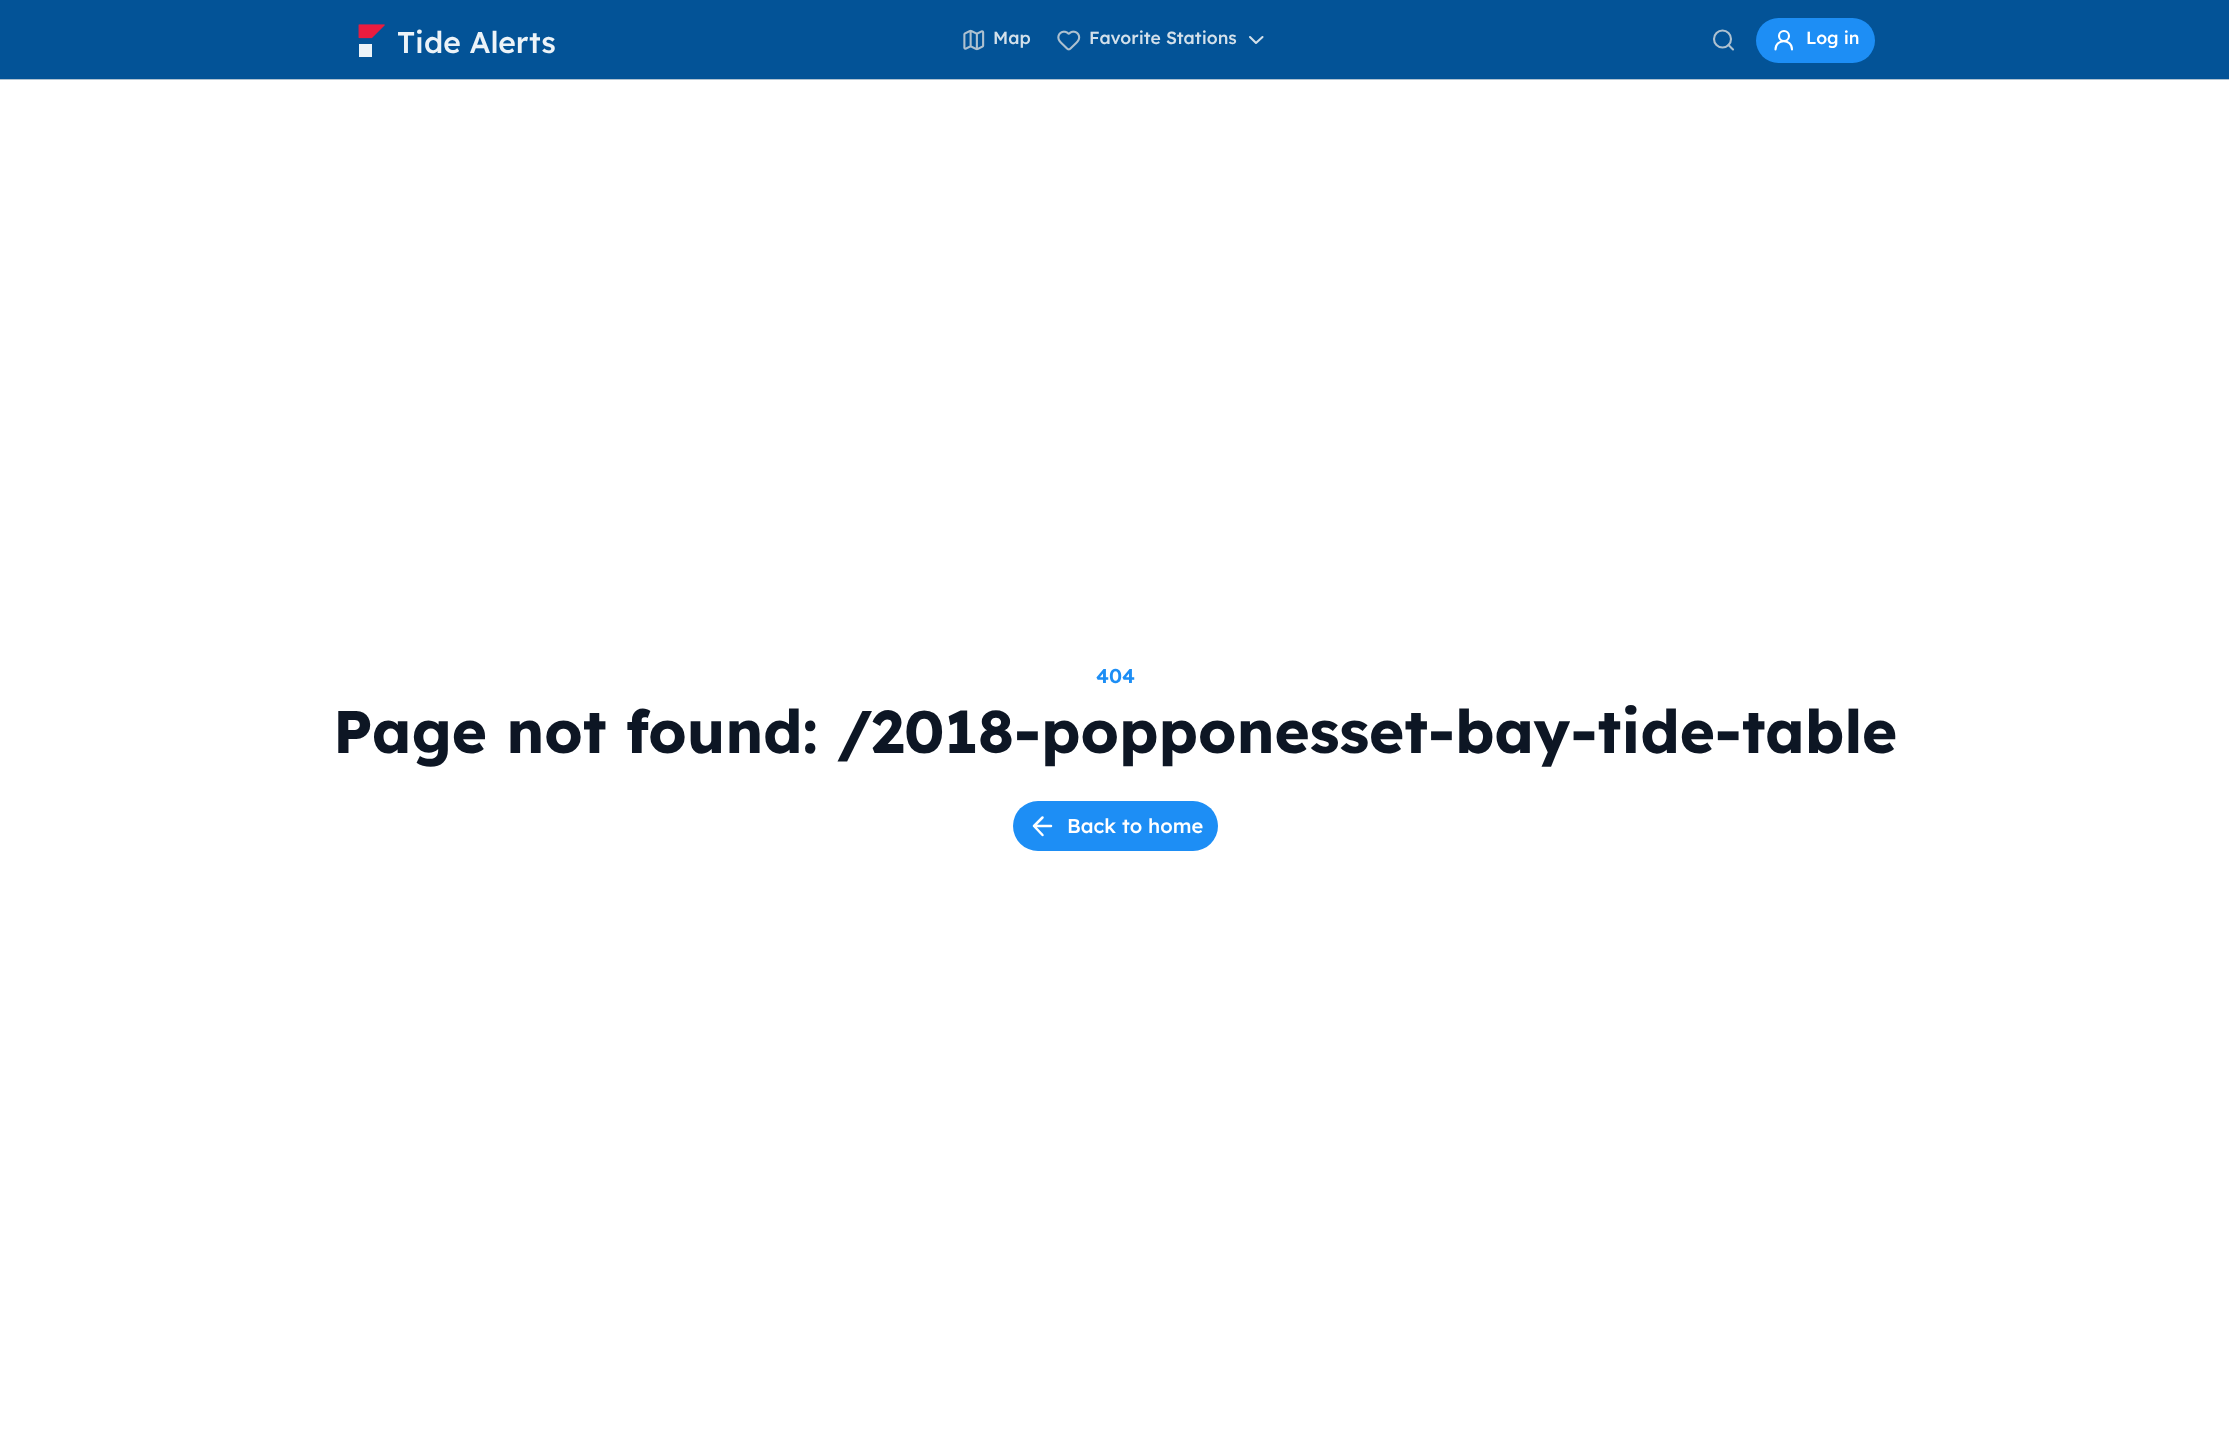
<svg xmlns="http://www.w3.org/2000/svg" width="2229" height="1431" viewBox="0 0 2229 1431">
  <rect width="100%" height="100%" fill="rgb(255,255,255)"/>
  <rect x="0" y="0" width="2229" height="79" fill="rgb(3,83,151)"/>
  <rect x="0" y="79" width="2229" height="1" fill="rgb(174,193,208)"/>
  <image x="358" y="24" width="27" height="33" href="pic1.png"/>
  <text x="397" y="53" font-family="Lexend" font-size="30" font-weight="500" fill="rgb(236,243,248)">Tide Alerts</text>
  <image x="963" y="29" width="22" height="22" href="pic2.png"/>
  <text x="993" y="44" font-family="Lexend" font-size="17.5" font-weight="500" fill="rgb(211,224,234)">Map</text>
  <image x="1057" y="30" width="24" height="21" href="pic3.png"/>
  <text x="1089" y="44" font-family="Lexend" font-size="17.5" font-weight="500" fill="rgb(211,224,234)">Favorite Stations</text>
  <path d="M1250 37L1256 43L1262.5 37" fill="none" stroke="rgb(211,224,234)" stroke-width="2.1" stroke-linecap="round" stroke-linejoin="round"/>
  <path d="M1733 49.5L1728.5 45" fill="none" stroke="rgb(174,193,208)" stroke-width="2.1" stroke-linecap="round" stroke-linejoin="round"/>
  <circle cx="1722.5" cy="39" r="8.5" fill="none" stroke="rgb(174,193,208)" stroke-width="2.1"/>
  <rect x="1756" y="18" width="119" height="45" rx="22.5" fill="rgb(29,142,245)"/>
  <circle cx="1784" cy="36" r="5" fill="none" stroke="rgb(255,255,255)" stroke-width="2.1"/>
  <path d="M1792 49.5C1792 38.5 1775.5 38.5 1775.5 49.5" fill="none" stroke="rgb(255,255,255)" stroke-width="2.1" stroke-linecap="round" stroke-linejoin="round"/>
  <text x="1806" y="44" font-family="Lexend" font-size="17.5" font-weight="500" fill="rgb(255,255,255)">Log in</text>
  <text x="1096" y="683" font-family="Lexend" font-size="20" font-weight="600" fill="rgb(29,142,245)">404</text>
  <text x="333" y="753" font-family="Lexend" font-size="60" font-weight="bold" fill="rgb(13,22,36)">Page not found: /2018-popponesset-bay-tide-table</text>
  <rect x="1013" y="801" width="205" height="50" rx="25" fill="rgb(29,142,245)"/>
  <path d="M1042.5 835L1034 826L1042.5 817.5M1051 826H1034" fill="none" stroke="rgb(255,255,255)" stroke-width="2.5" stroke-linecap="round" stroke-linejoin="round"/>
  <text x="1067" y="833" font-family="Lexend" font-size="20" font-weight="500" fill="rgb(255,255,255)">Back to home</text>
</svg>
